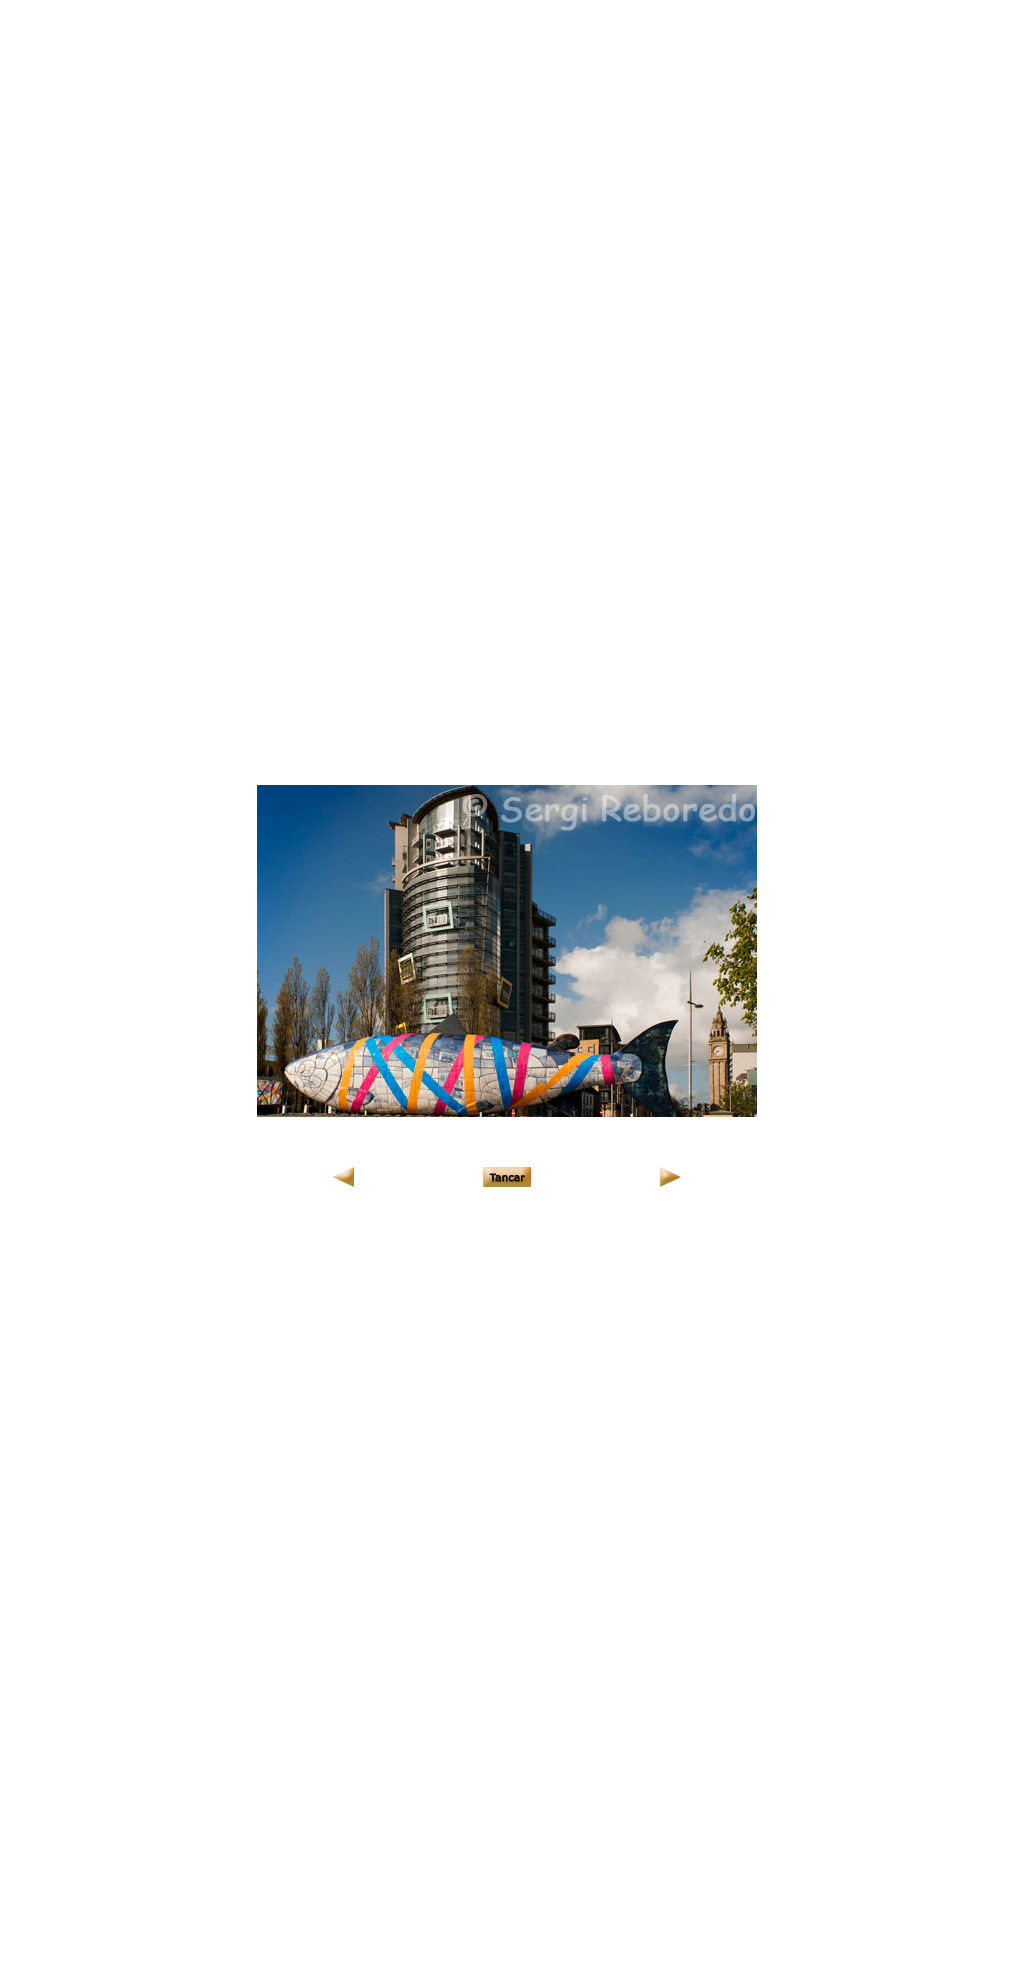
<svg xmlns="http://www.w3.org/2000/svg" width="1013" height="1971" viewBox="0 0 1013 1971">
  <rect width="100%" height="100%" fill="rgb(255,255,255)"/>
  <image x="257" y="785" width="500" height="332" href="pic1.png"/>
  <image x="333" y="1167" width="21" height="20" href="pic2.png"/>
  <image x="483" y="1167" width="48" height="20" href="pic3.png"/>
  <image x="660" y="1167" width="21" height="20" href="pic4.png"/>
</svg>
